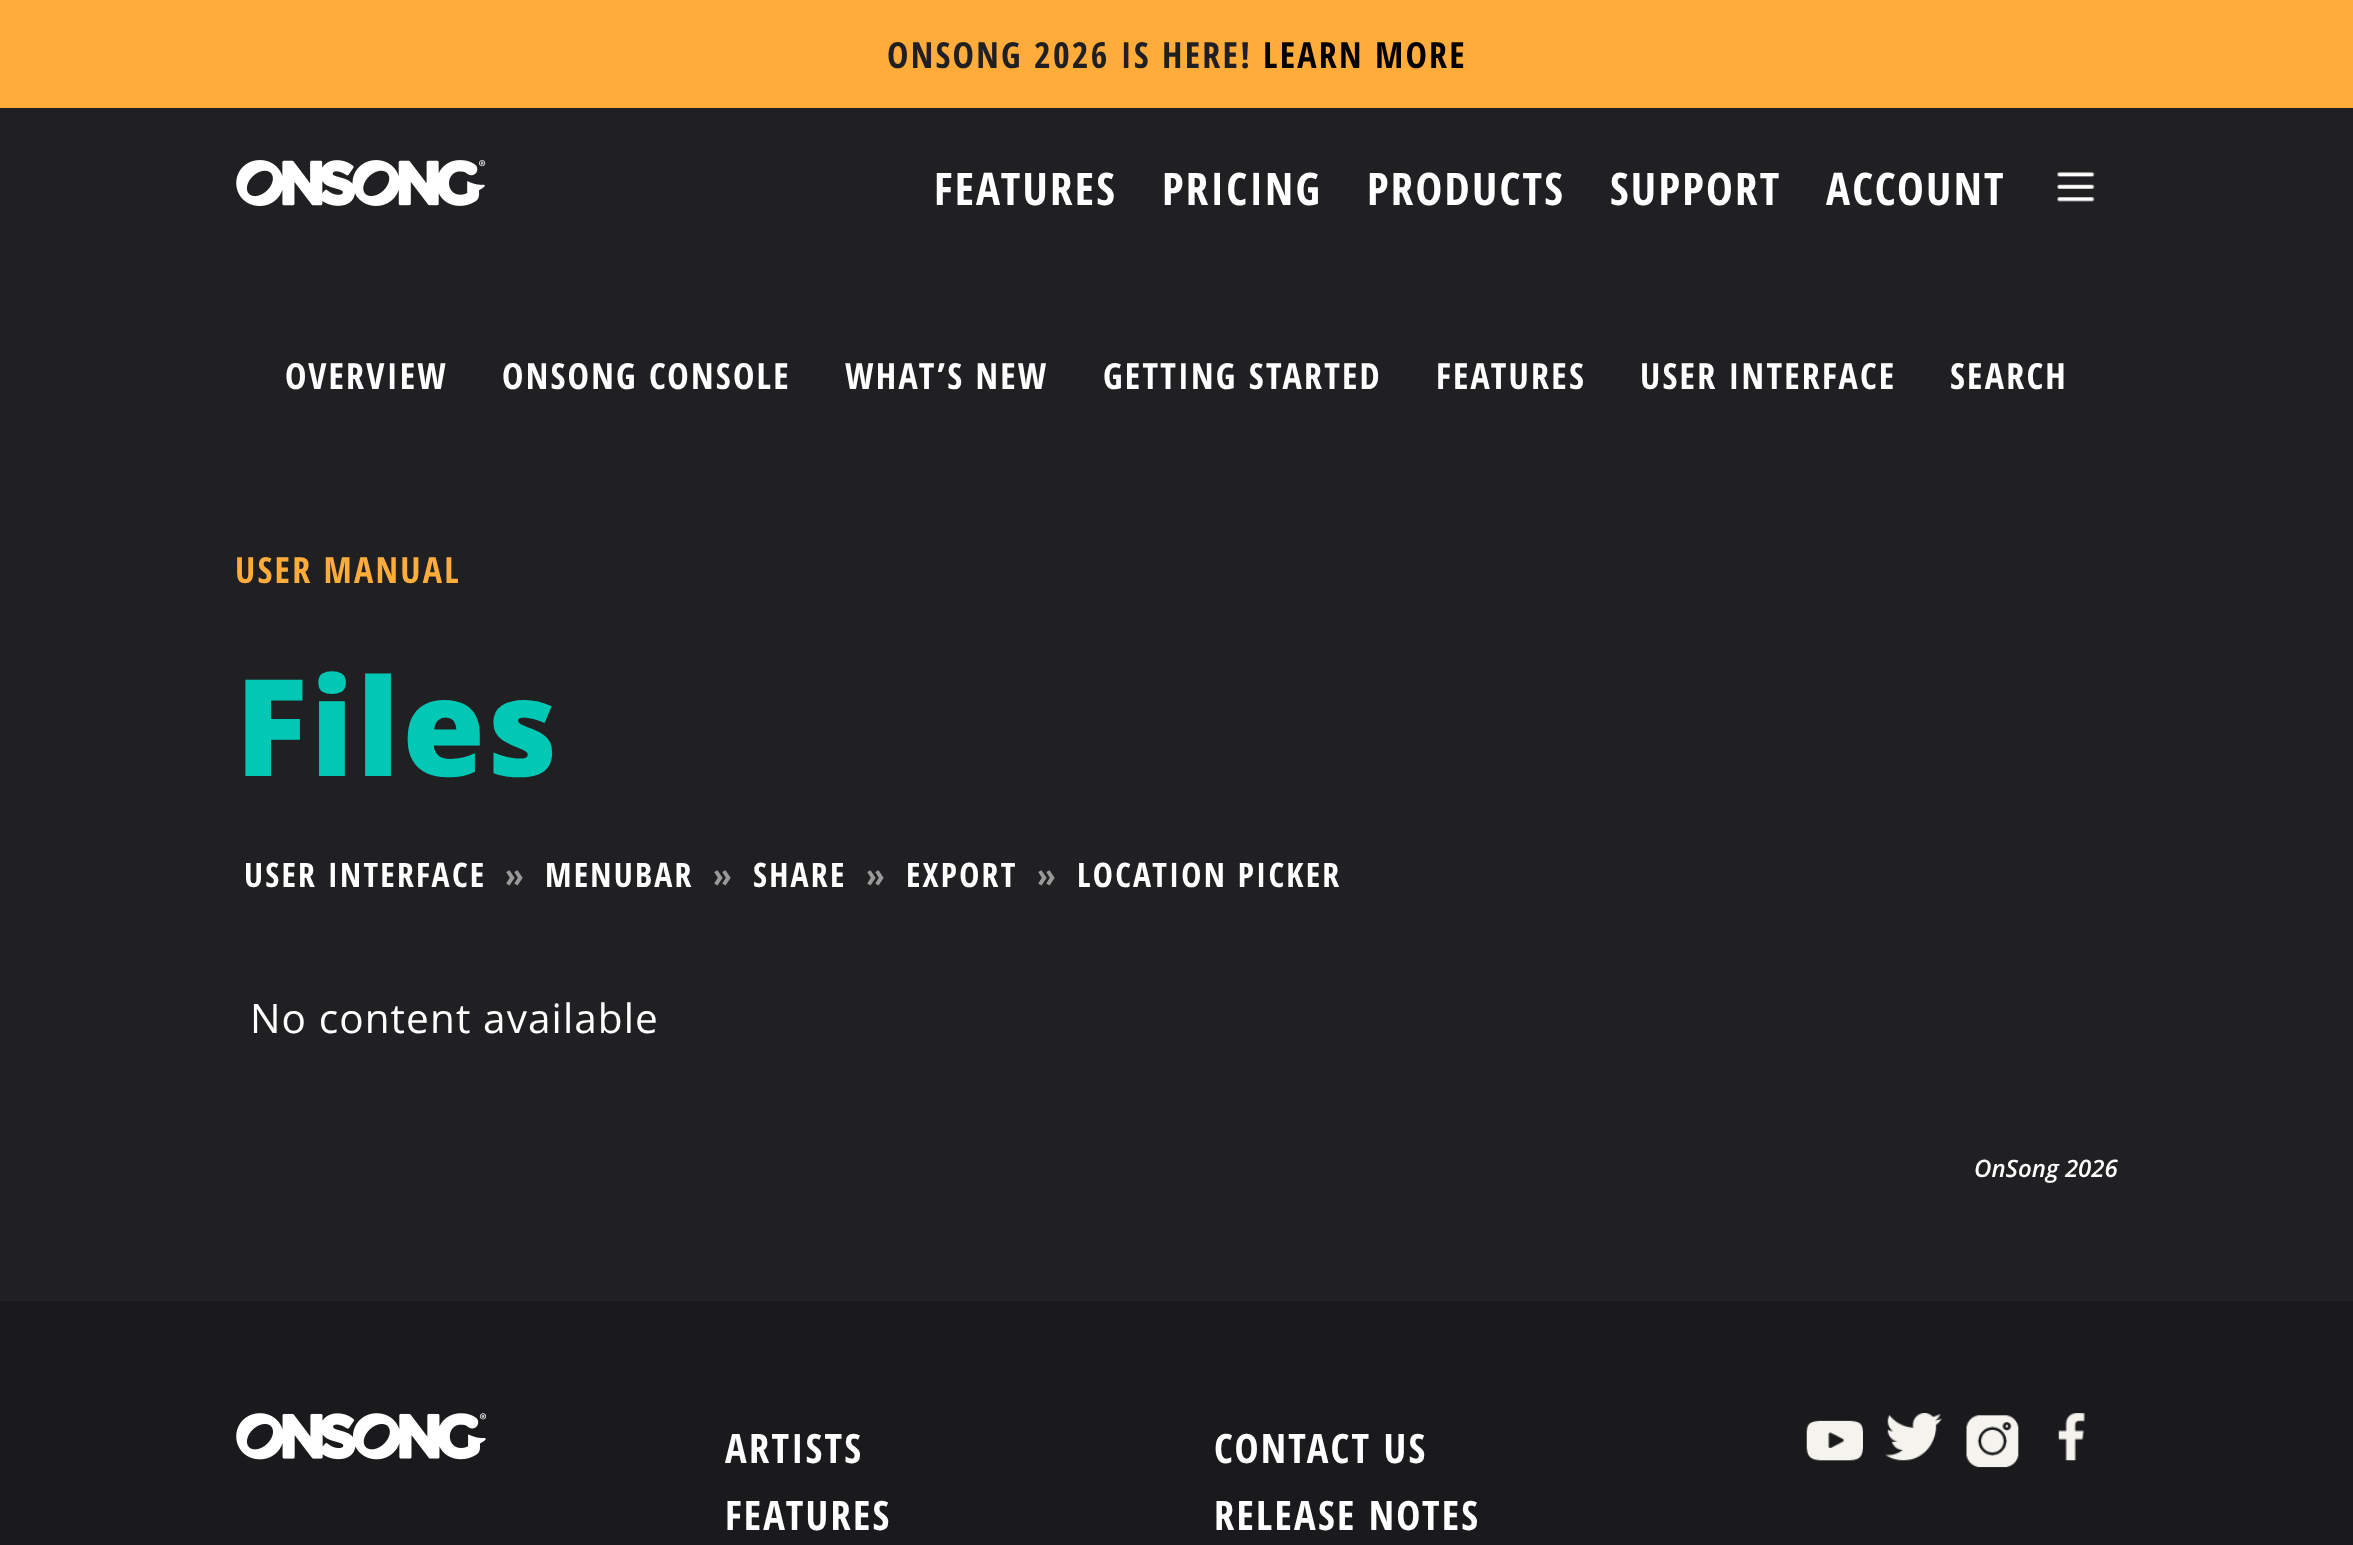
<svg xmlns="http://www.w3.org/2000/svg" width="2353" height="1545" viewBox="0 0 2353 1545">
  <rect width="100%" height="100%" fill="rgb(32,32,35)"/>
  <rect x="0" y="0" width="2353" height="108" fill="rgb(255,172,59)"/>
  <text x="887" y="68" font-family="Open Sans Condensed" font-size="36" font-weight="bold" letter-spacing="2.25" fill="rgb(32,32,35)">ONSONG 2026 IS HERE!</text>
  <text x="1263" y="68" font-family="Open Sans Condensed" font-size="36" font-weight="bold" letter-spacing="2.25" fill="rgb(0,0,0)">LEARN MORE</text>
  <image x="236" y="160" width="250" height="46" href="pic1.png"/>
  <g font-family="Open Sans Condensed" font-size="45" font-weight="bold" letter-spacing="2.25" fill="rgb(255,255,255)">
    <text x="934" y="205">FEATURES</text>
    <text x="1162" y="205">PRICING</text>
    <text x="1367" y="205">PRODUCTS</text>
    <text x="1610" y="205">SUPPORT</text>
    <text x="1826" y="205">ACCOUNT</text>
  </g>
  <image x="2057" y="172" width="38" height="30" href="pic2.png"/>
  <g font-family="Open Sans Condensed" font-size="36" font-weight="bold" letter-spacing="2.25" fill="rgb(255,255,255)">
    <text x="285" y="389">OVERVIEW</text>
    <text x="502" y="389">ONSONG CONSOLE</text>
    <text x="845" y="389">WHAT’S NEW</text>
    <text x="1103" y="389">GETTING STARTED</text>
    <text x="1436" y="389">FEATURES</text>
    <text x="1640" y="389">USER INTERFACE</text>
    <text x="1950" y="389">SEARCH</text>
  </g>
  <text x="235" y="583" font-family="Open Sans Condensed" font-size="36" font-weight="bold" letter-spacing="2.25" fill="rgb(255,172,59)">USER MANUAL</text>
  <text x="235" y="776" font-family="Open Sans" font-size="135" font-weight="800" letter-spacing="2.25" fill="rgb(0,200,181)">Files</text>
  <text x="244" y="887" font-family="Open Sans Condensed" font-size="33.75" font-weight="bold" letter-spacing="2.25" fill="rgb(255,255,255)">USER INTERFACE</text>
  <text x="505" y="887" font-family="Open Sans Condensed" font-size="33.75" font-weight="bold" letter-spacing="2.25" fill="rgb(153,153,153)">»</text>
  <text x="545" y="887" font-family="Open Sans Condensed" font-size="33.75" font-weight="bold" letter-spacing="2.25" fill="rgb(255,255,255)">MENUBAR</text>
  <text x="713" y="887" font-family="Open Sans Condensed" font-size="33.75" font-weight="bold" letter-spacing="2.25" fill="rgb(153,153,153)">»</text>
  <text x="753" y="887" font-family="Open Sans Condensed" font-size="33.75" font-weight="bold" letter-spacing="2.25" fill="rgb(255,255,255)">SHARE</text>
  <text x="866" y="887" font-family="Open Sans Condensed" font-size="33.75" font-weight="bold" letter-spacing="2.25" fill="rgb(153,153,153)">»</text>
  <text x="906" y="887" font-family="Open Sans Condensed" font-size="33.75" font-weight="bold" letter-spacing="2.25" fill="rgb(255,255,255)">EXPORT</text>
  <text x="1037" y="887" font-family="Open Sans Condensed" font-size="33.75" font-weight="bold" letter-spacing="2.25" fill="rgb(153,153,153)">»</text>
  <text x="1077" y="887" font-family="Open Sans Condensed" font-size="33.75" font-weight="bold" letter-spacing="2.25" fill="rgb(255,255,255)">LOCATION PICKER</text>
  <text x="250" y="1033" font-family="Open Sans" font-size="40.5" letter-spacing="1.1" fill="rgb(255,255,255)">No content available</text>
  <text x="1974" y="1177" font-family="Open Sans" font-size="24" font-weight="600" font-style="italic" fill="rgb(255,255,255)">OnSong 2026</text>
  <rect x="0" y="1301" width="2353" height="244" fill="rgb(26,26,28)"/>
  <image x="236" y="1413" width="250" height="47" href="pic3.png"/>
  <g font-family="Open Sans Condensed" font-size="40.5" font-weight="bold" letter-spacing="2.25" fill="rgb(255,255,255)">
    <text>
      <tspan x="725" y="1463">ARTISTS</tspan>
      <tspan x="725" y="1530">FEATURES</tspan>
    </text>
    <text>
      <tspan x="1214" y="1463">CONTACT US</tspan>
      <tspan x="1214" y="1530">RELEASE NOTES</tspan>
    </text>
  </g>
  <image x="1806" y="1420" width="57" height="41" href="pic4.png"/>
  <image x="1885" y="1413" width="57" height="48" href="pic5.png"/>
  <image x="1966" y="1415" width="53" height="53" href="pic6.png"/>
  <image x="2058" y="1413" width="27" height="48" href="pic7.png"/>
</svg>
